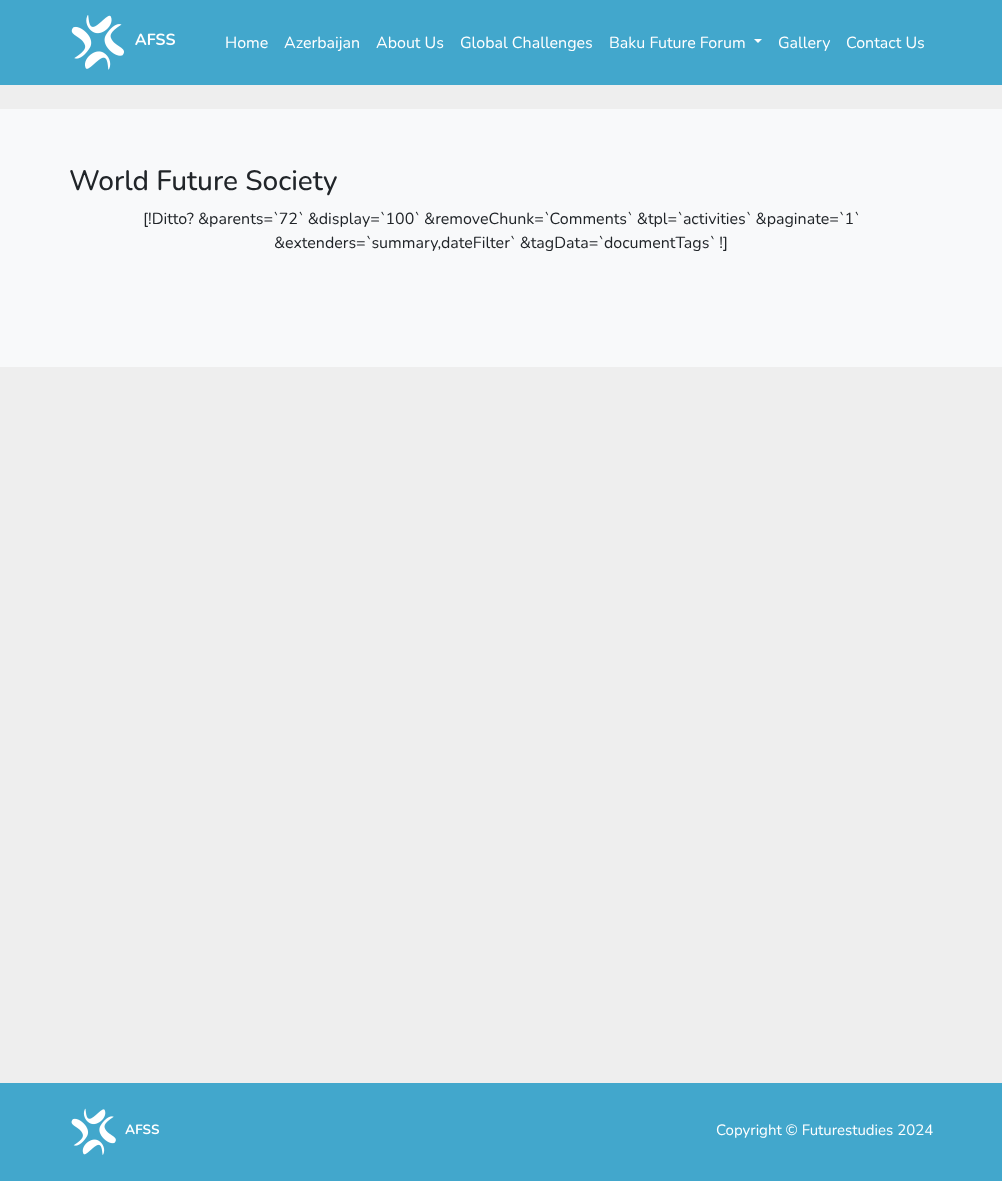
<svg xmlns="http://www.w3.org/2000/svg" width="1002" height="1181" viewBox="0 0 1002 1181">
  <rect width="100%" height="100%" fill="rgb(238,238,238)"/>
  <rect x="0" y="0" width="1002" height="85" fill="rgb(66,167,204)"/>
  <image x="71" y="15" width="104" height="55" href="pic1.png"/>
  <g font-family="Nunito" font-size="16" fill="rgb(255,255,255)">
    <text x="225" y="48">Home</text>
    <text x="284" y="48">Azerbaijan</text>
    <text x="376" y="48">About Us</text>
    <text x="460" y="48">Global Challenges</text>
    <text x="609" y="48">Baku Future Forum</text>
  </g>
  <path d="M754 39H762L758 43Z" fill="rgb(255,255,255)"/>
  <g font-family="Nunito" font-size="16" fill="rgb(255,255,255)">
    <text x="778" y="48">Gallery</text>
    <text x="846" y="48">Contact Us</text>
  </g>
  <rect x="0" y="109" width="1002" height="258" fill="rgb(248,249,250)"/>
  <text x="69" y="190" font-family="Nunito" font-size="28" font-weight="500" fill="rgb(33,37,41)">World Future Society</text>
  <g font-family="Nunito" font-size="16" fill="rgb(33,37,41)">
    <text x="143" y="224">[!Ditto? &amp;parents=`72` &amp;display=`100` &amp;removeChunk=`Comments` &amp;tpl=`activities` &amp;paginate=`1`</text>
    <text x="274" y="248">&amp;extenders=`summary,dateFilter` &amp;tagData=`documentTags` !]</text>
  </g>
  <rect x="0" y="1083" width="1002" height="98" fill="rgb(66,167,204)"/>
  <image x="71" y="1108" width="89" height="47" href="pic2.png"/>
  <text x="716" y="1135" font-family="Nunito" font-size="15" fill="rgb(255,255,255)">Copyright © Futurestudies 2024</text>
</svg>
